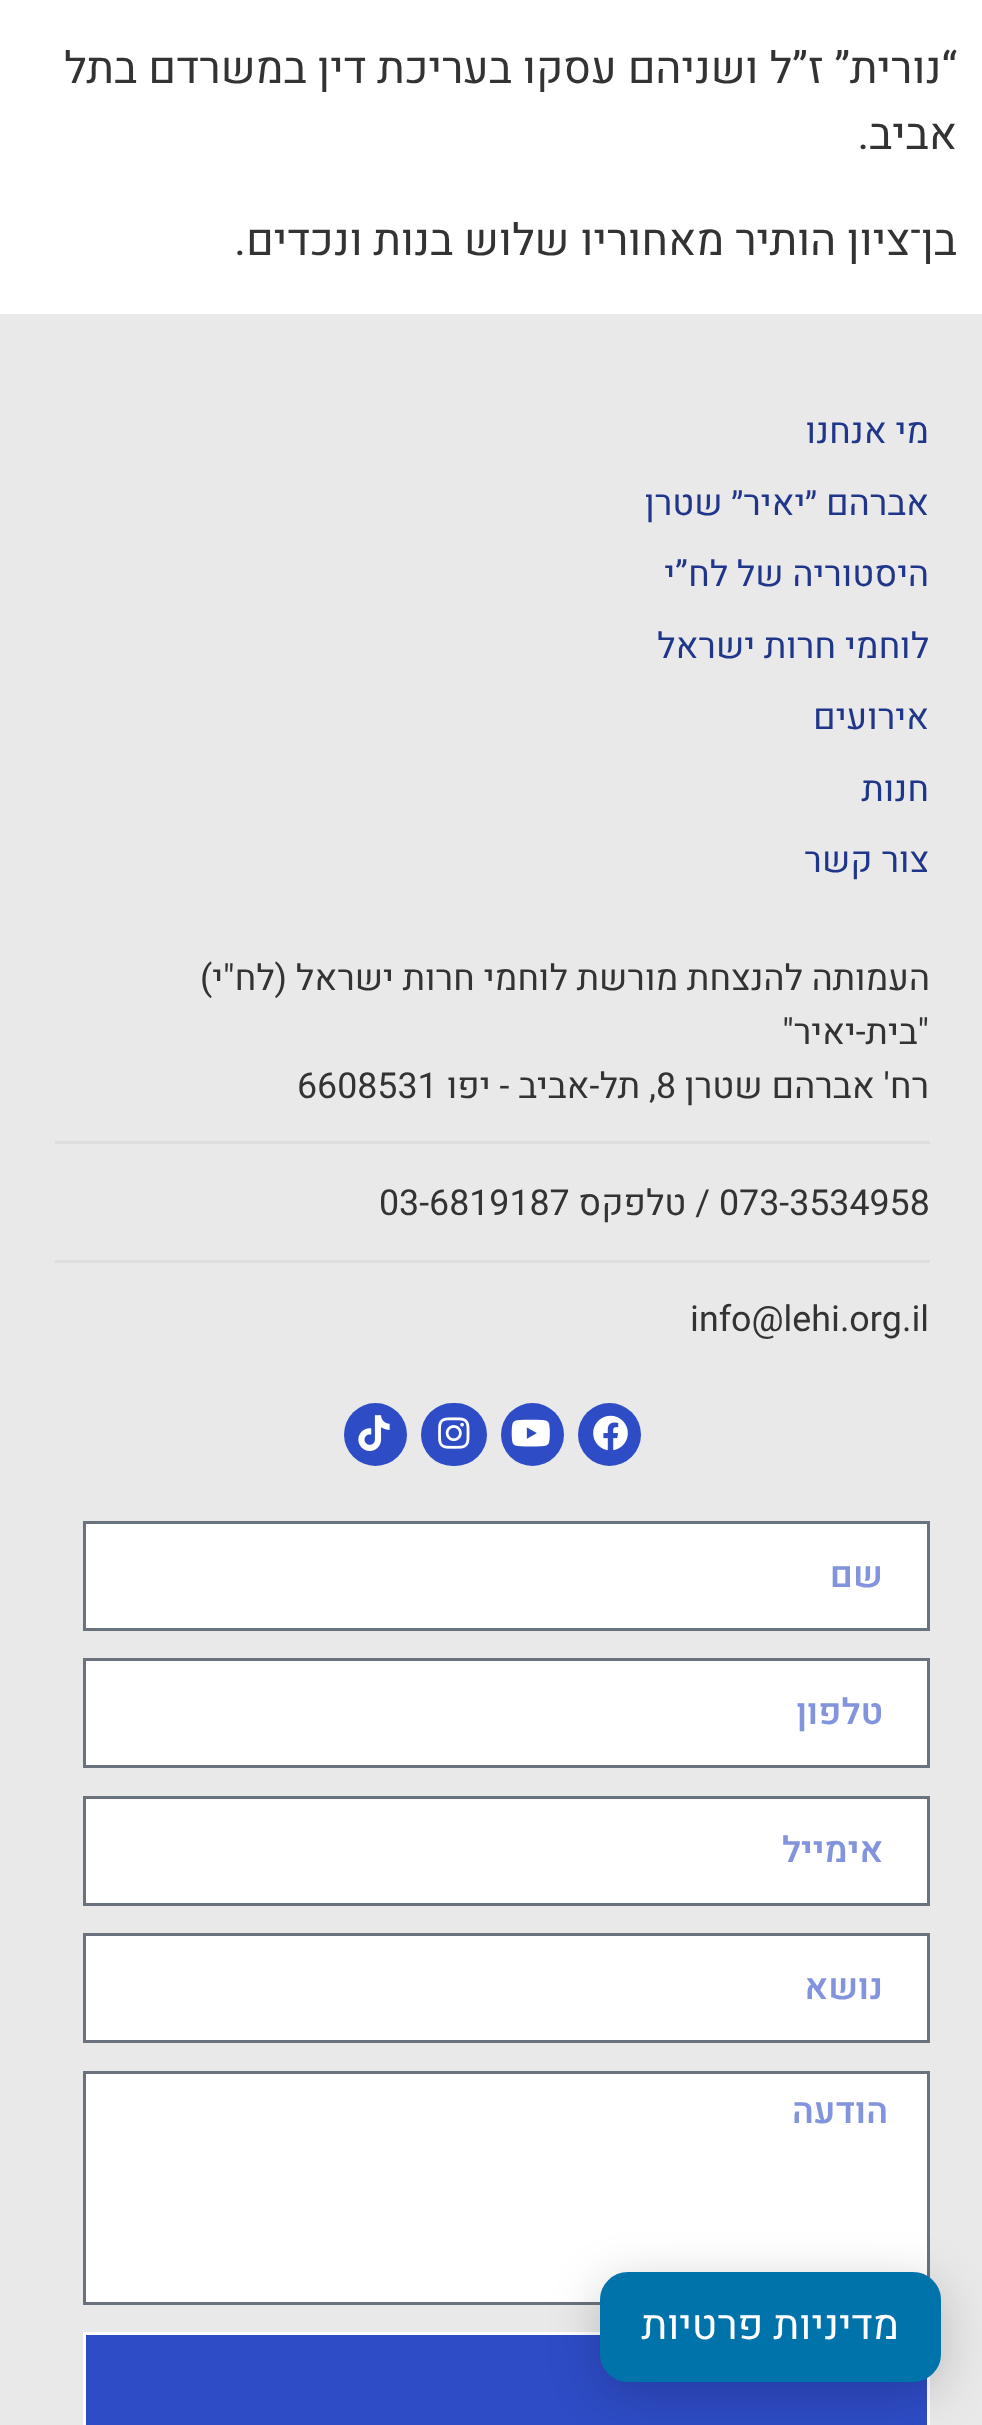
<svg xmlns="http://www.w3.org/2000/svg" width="982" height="2425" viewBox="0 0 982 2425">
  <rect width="100%" height="100%" fill="rgb(255,255,255)"/>
  <g font-family="Heebo" font-size="44" direction="rtl" fill="rgb(51,51,51)">
    <text>
      <tspan x="957" y="83">“נורית” ז”ל ושניהם עסקו בעריכת דין במשרדם בתל</tspan>
      <tspan x="957" y="149">אביב.</tspan>
    </text>
    <text x="957" y="255">בן־ציון הותיר מאחוריו שלוש בנות ונכדים.</text>
  </g>
  <rect x="0" y="314" width="982" height="2111" fill="rgb(233,233,233)"/>
  <g font-family="Heebo" font-size="35.75" direction="rtl" fill="rgb(32,54,139)">
    <text x="929" y="443">מי אנחנו</text>
    <text>
      <tspan x="929" y="515">אברהם ״יאיר״ שטרן</tspan>
      <tspan x="929" y="586">היסטוריה של לח”י</tspan>
    </text>
    <text>
      <tspan x="929" y="658">לוחמי חרות ישראל</tspan>
      <tspan x="929" y="729">אירועים</tspan>
    </text>
    <text>
      <tspan x="929" y="801">חנות</tspan>
      <tspan x="929" y="872">צור קשר</tspan>
    </text>
  </g>
  <g font-family="Heebo" font-size="35.75" direction="rtl" fill="rgb(51,51,51)">
    <text x="930" y="990">העמותה להנצחת מורשת לוחמי חרות ישראל (לח"י)</text>
    <text>
      <tspan x="929" y="1044">"בית-יאיר"</tspan>
      <tspan x="929" y="1098">רח' אברהם שטרן</tspan>
    </text>
  </g>
  <text x="656" y="1098" font-family="Heebo" font-size="35.75" fill="rgb(51,51,51)">8</text>
  <text x="656" y="1098" font-family="Heebo" font-size="35.75" direction="rtl" fill="rgb(51,51,51)">, תל-אביב - יפו</text>
  <text x="297" y="1098" font-family="Heebo" font-size="35.75" fill="rgb(51,51,51)">6608531</text>
  <rect x="55" y="1141" width="875" height="3" fill="rgb(221,221,221)"/>
  <text x="719" y="1215" font-family="Heebo" font-size="35.75" fill="rgb(51,51,51)">073-3534958</text>
  <text x="710" y="1215" font-family="Heebo" font-size="35.75" direction="rtl" fill="rgb(51,51,51)">/ טלפקס</text>
  <text x="379" y="1215" font-family="Heebo" font-size="35.75" fill="rgb(51,51,51)">03-6819187</text>
  <rect x="55" y="1260" width="875" height="3" fill="rgb(221,221,221)"/>
  <text x="690" y="1331" font-family="Heebo" font-size="35.75" fill="rgb(51,51,51)">info@lehi.org.il</text>
  <circle cx="609.5" cy="1434.5" r="31.5" fill="rgb(46,76,198)"/>
  <image x="593" y="1415" width="35" height="36" href="pic1.png"/>
  <circle cx="532.5" cy="1434.5" r="31.5" fill="rgb(46,76,198)"/>
  <image x="511" y="1419" width="39" height="28" href="pic2.png"/>
  <rect x="421" y="1403" width="66" height="63" rx="31.5" fill="rgb(46,76,198)"/>
  <image x="438" y="1417" width="32" height="32" href="pic3.png"/>
  <circle cx="375.5" cy="1434.5" r="31.5" fill="rgb(46,76,198)"/>
  <image x="358" y="1415" width="32" height="36" href="pic4.png"/>
  <rect x="84.5" y="1522.5" width="844" height="107" fill="rgb(255,255,255)" stroke="rgb(105,114,125)" stroke-width="3"/>
  <text x="883" y="1587" font-family="Heebo" font-size="35.75" font-weight="600" direction="rtl" fill="rgb(130,148,221)">שם</text>
  <rect x="84.5" y="1659.5" width="844" height="107" fill="rgb(255,255,255)" stroke="rgb(105,114,125)" stroke-width="3"/>
  <text x="883" y="1724" font-family="Heebo" font-size="35.75" font-weight="600" direction="rtl" fill="rgb(130,148,221)">טלפון</text>
  <rect x="84.5" y="1797.5" width="844" height="107" fill="rgb(255,255,255)" stroke="rgb(105,114,125)" stroke-width="3"/>
  <text x="883" y="1862" font-family="Heebo" font-size="35.75" font-weight="600" direction="rtl" fill="rgb(130,148,221)">אימייל</text>
  <rect x="84.5" y="1934.5" width="844" height="107" fill="rgb(255,255,255)" stroke="rgb(105,114,125)" stroke-width="3"/>
  <text x="883" y="1999" font-family="Heebo" font-size="35.75" font-weight="600" direction="rtl" fill="rgb(130,148,221)">נושא</text>
  <rect x="84.5" y="2072.5" width="844" height="231" fill="rgb(255,255,255)" stroke="rgb(105,114,125)" stroke-width="3"/>
  <text x="888" y="2123" font-family="Heebo" font-size="35.75" font-weight="600" direction="rtl" fill="rgb(130,148,221)">הודעה</text>
  <rect x="84.5" y="2333.5" width="844" height="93" fill="rgb(46,76,198)" stroke="rgb(255,255,255)" stroke-width="3"/>
  <rect x="600" y="2283" width="341" height="110" rx="28" fill="rgba(0,0,0,0.2)" filter="blur(25px)"/>
  <rect x="601.5" y="2273.5" width="338" height="107" rx="26.5" fill="rgb(0,115,170)" stroke="rgb(0,115,170)" stroke-width="3"/>
  <text x="899" y="2339" font-family="Heebo" font-size="41.25" direction="rtl" fill="rgb(255,255,255)">מדיניות פרטיות</text>
</svg>
